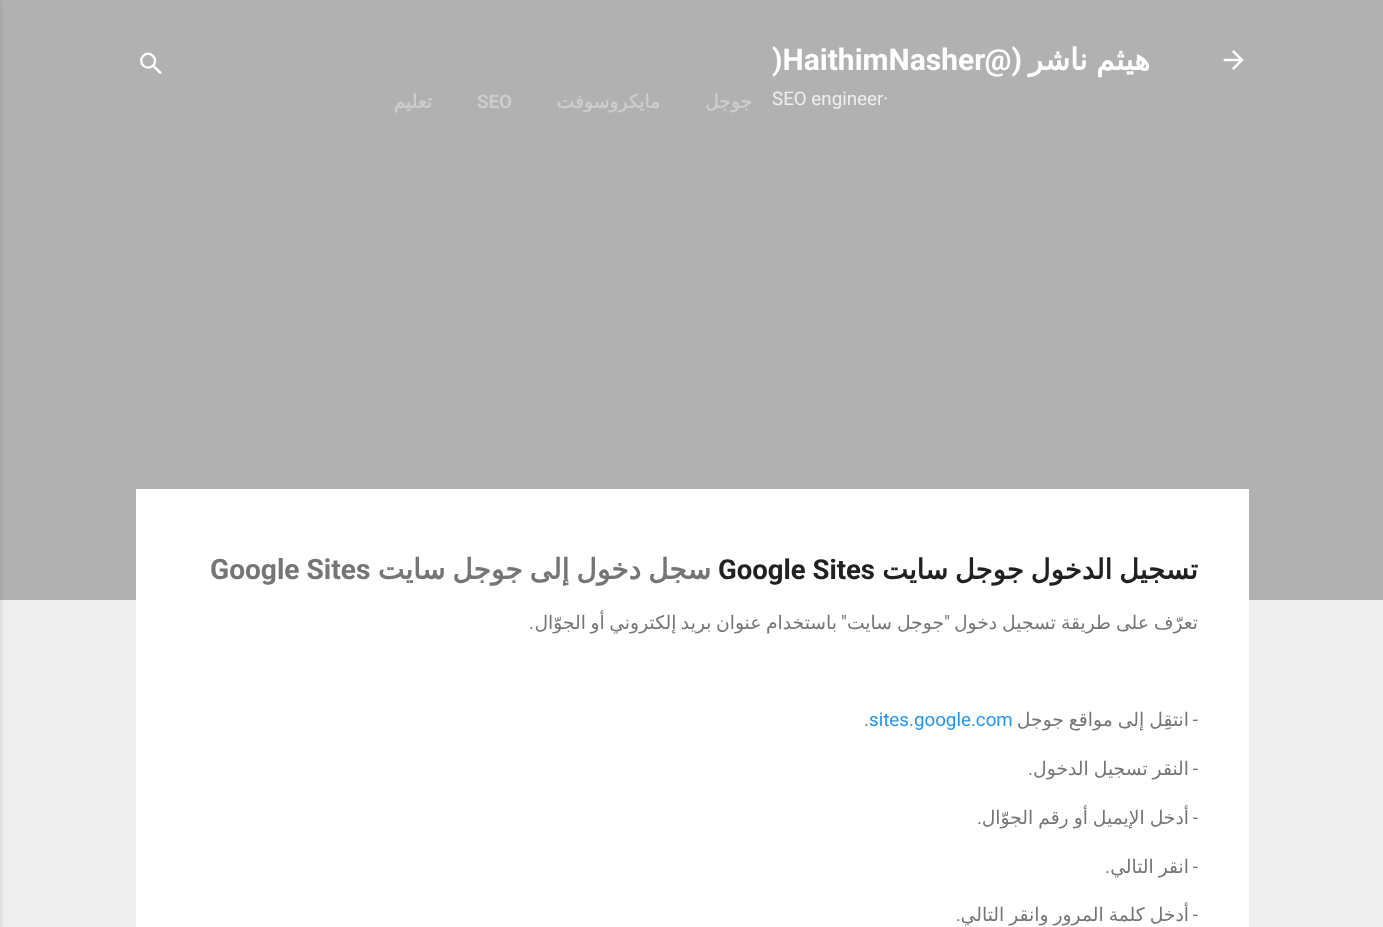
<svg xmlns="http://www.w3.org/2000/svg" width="1383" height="927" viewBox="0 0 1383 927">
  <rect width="100%" height="100%" fill="rgb(238,238,238)"/>
  <rect x="0" y="0" width="1383" height="600" fill="rgb(177,177,177)"/>
  <image x="1223" y="50" width="21" height="20" href="pic1.png"/>
  <text x="1150" y="70" word-spacing="-1" font-family="DejaVu Sans" font-size="30" font-weight="bold" direction="rtl" fill="rgb(255,255,255)">هيثم ناشر</text>
  <text x="1022" y="70" font-family="Roboto" font-size="30" font-weight="bold" direction="rtl" fill="rgb(255,255,255)">(@</text>
  <text x="772" y="70" font-family="Roboto" font-size="30" font-weight="bold" fill="rgb(255,255,255)">)HaithimNasher</text>
  <text x="772" y="105" font-family="Roboto" font-size="18.75" fill="rgb(239,239,239)">SEO engineer·</text>
  <g font-family="DejaVu Sans" font-size="18.75" font-weight="bold" direction="rtl" fill="rgb(204,204,204)">
    <text x="752" y="108">جوجل</text>
    <text x="660" y="108">مايكروسوفت</text>
  </g>
  <text x="477" y="108" font-family="Roboto" font-size="18.75" font-weight="bold" fill="rgb(204,204,204)">SEO</text>
  <text x="432" y="108" font-family="DejaVu Sans" font-size="18.75" font-weight="bold" direction="rtl" fill="rgb(204,204,204)">تعليم</text>
  <image x="140" y="52" width="22" height="22" href="pic2.png"/>
  <rect x="136" y="489" width="1113" height="438" fill="rgb(255,255,255)"/>
  <text x="711" y="579" word-spacing="-2" font-family="DejaVu Sans" font-size="28.1" font-weight="bold" direction="rtl" fill="rgb(117,117,117)">سجل دخول إلى جوجل سايت</text>
  <text x="210" y="579" font-family="Roboto" font-size="28.1" font-weight="bold" fill="rgb(117,117,117)">Google Sites</text>
  <text x="1198" y="629" word-spacing="-1" font-family="DejaVu Sans" font-size="18.75" direction="rtl" fill="rgb(117,117,117)">تعرّف على طريقة تسجيل دخول</text>
  <text x="950" y="629" font-family="Roboto" font-size="18.75" direction="rtl" fill="rgb(117,117,117)">"</text>
  <text x="944" y="629" word-spacing="-1" font-family="DejaVu Sans" font-size="18.75" direction="rtl" fill="rgb(117,117,117)">جوجل سايت</text>
  <text x="847" y="629" font-family="Roboto" font-size="18.75" direction="rtl" fill="rgb(117,117,117)">"</text>
  <text x="837" y="629" word-spacing="-1.5" font-family="DejaVu Sans" font-size="18.75" direction="rtl" fill="rgb(117,117,117)">باستخدام عنوان بريد إلكتروني أو الجوّال</text>
  <g font-family="Roboto" font-size="18.75" direction="rtl" fill="rgb(117,117,117)">
    <text x="534" y="629">.</text>
    <text x="1198" y="726">-</text>
  </g>
  <text x="1189" y="726" word-spacing="-1" font-family="DejaVu Sans" font-size="18.75" direction="rtl" fill="rgb(117,117,117)">انتقِل إلى مواقع جوجل</text>
  <text x="869" y="726" font-family="Roboto" font-size="18.75" fill="rgb(33,150,243)">sites.google.com</text>
  <text x="864" y="726" font-family="Roboto" font-size="18.75" fill="rgb(117,117,117)">.</text>
  <text x="1198" y="775" font-family="Roboto" font-size="18.75" direction="rtl" fill="rgb(117,117,117)">-</text>
  <text x="1189" y="775" word-spacing="-1" font-family="DejaVu Sans" font-size="18.75" direction="rtl" fill="rgb(117,117,117)">النقر تسجيل الدخول</text>
  <g font-family="Roboto" font-size="18.75" direction="rtl" fill="rgb(117,117,117)">
    <text x="1033" y="775">.</text>
    <text x="1198" y="824">-</text>
  </g>
  <text x="1189" y="824" word-spacing="-1" font-family="DejaVu Sans" font-size="18.75" direction="rtl" fill="rgb(117,117,117)">أدخل الإيميل أو رقم الجوّال</text>
  <g font-family="Roboto" font-size="18.75" direction="rtl" fill="rgb(117,117,117)">
    <text x="982" y="824">.</text>
    <text x="1198" y="873">-</text>
  </g>
  <text x="1189" y="873" word-spacing="-1" font-family="DejaVu Sans" font-size="18.75" direction="rtl" fill="rgb(117,117,117)">انقر التالي</text>
  <g font-family="Roboto" font-size="18.75" direction="rtl" fill="rgb(117,117,117)">
    <text x="1110" y="873">.</text>
    <text x="1198" y="921">-</text>
  </g>
  <text x="1189" y="921" word-spacing="-1" font-family="DejaVu Sans" font-size="18.75" direction="rtl" fill="rgb(117,117,117)">أدخل كلمة المرور وانقر التالي</text>
  <text x="961" y="921" font-family="Roboto" font-size="18.75" direction="rtl" fill="rgb(117,117,117)">.</text>
  <text x="1198" y="579" word-spacing="-2" font-family="DejaVu Sans" font-size="27.5" font-weight="bold" direction="rtl" fill="rgb(33,33,33)">تسجيل الدخول جوجل سايت</text>
  <text x="718" y="579" font-family="Roboto" font-size="27.5" font-weight="bold" fill="rgb(33,33,33)">Google Sites</text>
  <rect x="-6" y="1" width="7" height="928" fill="rgba(0,0,0,0.1)" filter="blur(2px)"/>
</svg>
